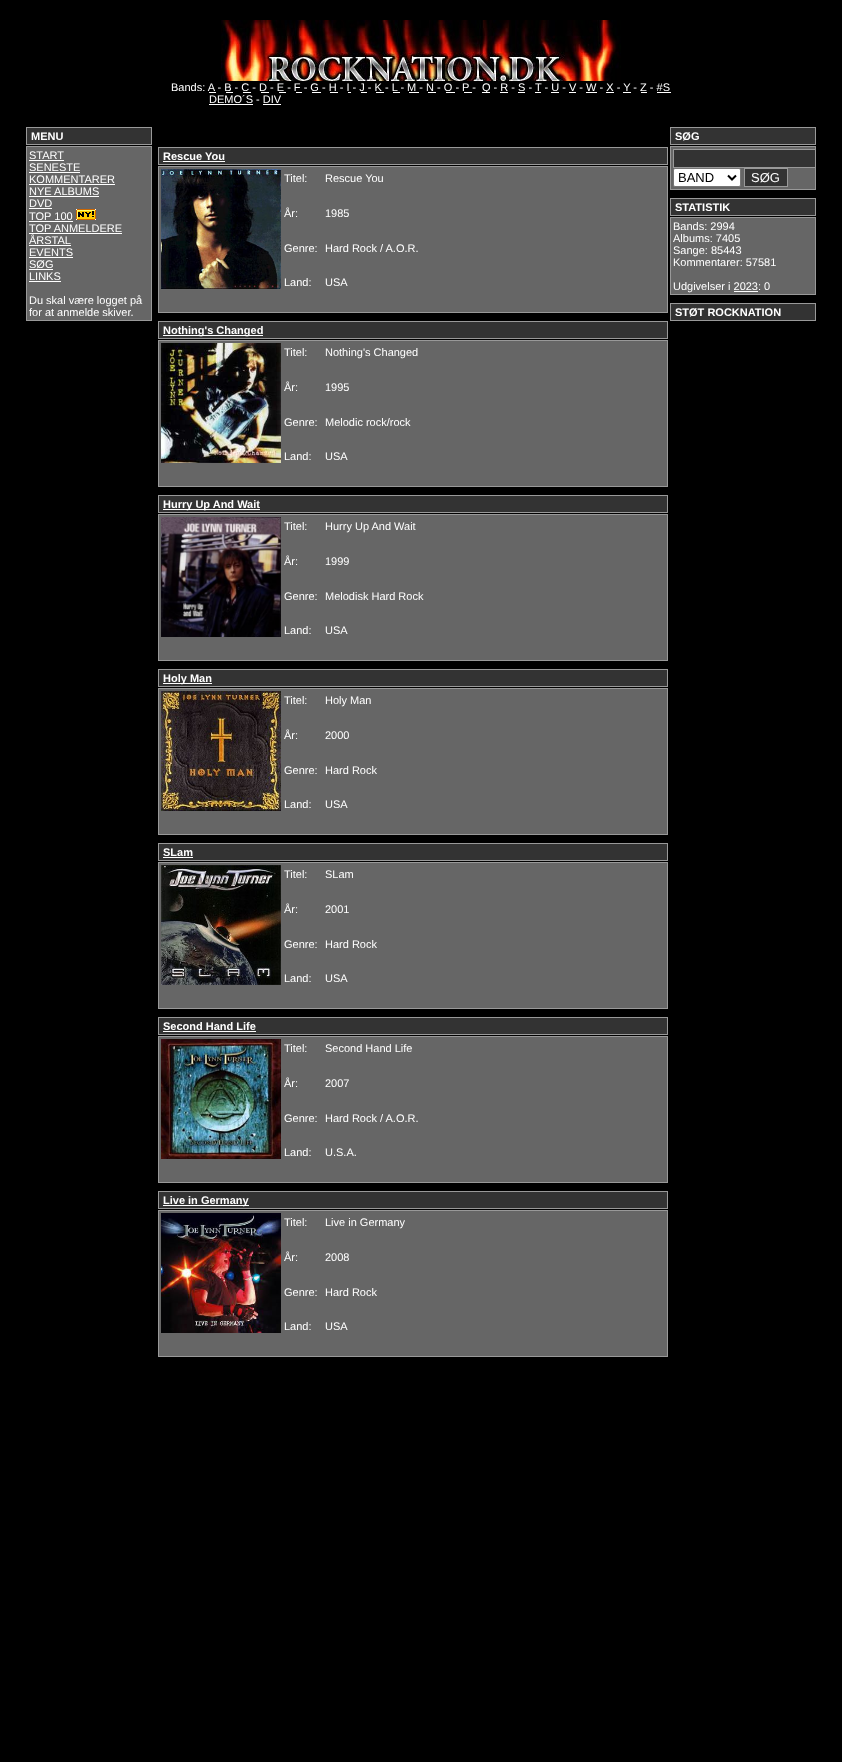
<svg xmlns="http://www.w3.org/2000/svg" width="842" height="1762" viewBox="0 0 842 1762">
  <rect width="100%" height="100%" fill="rgb(0,0,0)"/>
  <image x="221" y="20" width="400" height="61" href="pic1.png"/>
  <text x="171" y="91" font-family="Liberation Sans" font-size="11" fill="rgb(255,255,255)">Bands: A - B - C - D - E - F - G - H - I - J - K - L - M - N - O - P -</text>
  <rect x="209" y="92" width="7" height="1" fill="rgb(255,255,255)"/>
  <rect x="226" y="92" width="7" height="1" fill="rgb(255,255,255)"/>
  <rect x="243" y="92" width="8" height="1" fill="rgb(255,255,255)"/>
  <rect x="261" y="92" width="8" height="1" fill="rgb(255,255,255)"/>
  <rect x="279" y="92" width="7" height="1" fill="rgb(255,255,255)"/>
  <rect x="296" y="92" width="6" height="1" fill="rgb(255,255,255)"/>
  <rect x="312" y="92" width="9" height="1" fill="rgb(255,255,255)"/>
  <rect x="330" y="92" width="8" height="1" fill="rgb(255,255,255)"/>
  <rect x="348" y="92" width="3" height="1" fill="rgb(255,255,255)"/>
  <rect x="361" y="92" width="6" height="1" fill="rgb(255,255,255)"/>
  <rect x="376" y="92" width="8" height="1" fill="rgb(255,255,255)"/>
  <rect x="393" y="92" width="7" height="1" fill="rgb(255,255,255)"/>
  <rect x="409" y="92" width="10" height="1" fill="rgb(255,255,255)"/>
  <rect x="428" y="92" width="8" height="1" fill="rgb(255,255,255)"/>
  <rect x="446" y="92" width="9" height="1" fill="rgb(255,255,255)"/>
  <rect x="464" y="92" width="8" height="1" fill="rgb(255,255,255)"/>
  <rect x="482" y="92" width="8" height="1" fill="rgb(255,255,255)"/>
  <text x="482" y="91" font-family="Liberation Sans" font-size="11" fill="rgb(255,255,255)">Q - R - S - T - U - V - W - X - Y - Z - #S</text>
  <rect x="500" y="92" width="8" height="1" fill="rgb(255,255,255)"/>
  <rect x="518" y="92" width="7" height="1" fill="rgb(255,255,255)"/>
  <rect x="535" y="92" width="6" height="1" fill="rgb(255,255,255)"/>
  <rect x="551" y="92" width="8" height="1" fill="rgb(255,255,255)"/>
  <rect x="569" y="92" width="7" height="1" fill="rgb(255,255,255)"/>
  <rect x="586" y="92" width="11" height="1" fill="rgb(255,255,255)"/>
  <rect x="606" y="92" width="8" height="1" fill="rgb(255,255,255)"/>
  <rect x="623" y="92" width="8" height="1" fill="rgb(255,255,255)"/>
  <rect x="641" y="92" width="6" height="1" fill="rgb(255,255,255)"/>
  <rect x="657" y="92" width="14" height="1" fill="rgb(255,255,255)"/>
  <text x="209" y="103" font-family="Liberation Sans" font-size="11" fill="rgb(255,255,255)">DEMO´S - DIV</text>
  <rect x="209" y="104" width="44" height="1" fill="rgb(255,255,255)"/>
  <rect x="263" y="104" width="18" height="1" fill="rgb(255,255,255)"/>
  <rect x="26.5" y="127.5" width="125" height="17" fill="rgb(51,51,51)" stroke="rgb(153,153,153)"/>
  <text x="31" y="140" font-family="Liberation Sans" font-size="11" font-weight="bold" fill="rgb(255,255,255)">MENU</text>
  <rect x="26.5" y="146.5" width="125" height="174" fill="rgb(102,102,102)" stroke="rgb(153,153,153)"/>
  <text x="29" y="159" font-family="Liberation Sans" font-size="11" fill="rgb(255,255,255)">START</text>
  <rect x="29" y="160" width="35" height="1" fill="rgb(255,255,255)"/>
  <text x="29" y="171" font-family="Liberation Sans" font-size="11" fill="rgb(255,255,255)">SENESTE</text>
  <rect x="29" y="172" width="51" height="1" fill="rgb(255,255,255)"/>
  <text x="29" y="183" font-family="Liberation Sans" font-size="11" fill="rgb(255,255,255)">KOMMENTARER</text>
  <rect x="29" y="184" width="86" height="1" fill="rgb(255,255,255)"/>
  <text x="29" y="195" font-family="Liberation Sans" font-size="11" fill="rgb(255,255,255)">NYE ALBUMS</text>
  <rect x="29" y="196" width="70" height="1" fill="rgb(255,255,255)"/>
  <text x="29" y="207" font-family="Liberation Sans" font-size="11" fill="rgb(255,255,255)">DVD</text>
  <rect x="29" y="208" width="23" height="1" fill="rgb(255,255,255)"/>
  <text x="29" y="220" font-family="Liberation Sans" font-size="11" fill="rgb(255,255,255)">TOP 100</text>
  <rect x="29" y="221" width="44" height="1" fill="rgb(255,255,255)"/>
  <image x="76" y="209" width="20" height="11" href="pic2.png"/>
  <text x="29" y="232" font-family="Liberation Sans" font-size="11" fill="rgb(255,255,255)">TOP ANMELDERE</text>
  <rect x="29" y="233" width="93" height="1" fill="rgb(255,255,255)"/>
  <text x="29" y="244" font-family="Liberation Sans" font-size="11" fill="rgb(255,255,255)">ÅRSTAL</text>
  <rect x="29" y="245" width="42" height="1" fill="rgb(255,255,255)"/>
  <text x="29" y="256" font-family="Liberation Sans" font-size="11" fill="rgb(255,255,255)">EVENTS</text>
  <rect x="29" y="257" width="44" height="1" fill="rgb(255,255,255)"/>
  <text x="29" y="268" font-family="Liberation Sans" font-size="11" fill="rgb(255,255,255)">SØG</text>
  <rect x="29" y="269" width="24" height="1" fill="rgb(255,255,255)"/>
  <text x="29" y="280" font-family="Liberation Sans" font-size="11" fill="rgb(255,255,255)">LINKS</text>
  <rect x="29" y="281" width="32" height="1" fill="rgb(255,255,255)"/>
  <g font-family="Liberation Sans" font-size="11" fill="rgb(255,255,255)">
    <text>
      <tspan x="29" y="304">Du skal være logget på</tspan>
      <tspan x="29" y="316">for at anmelde skiver.</tspan>
    </text>
  </g>
  <rect x="158.5" y="147.5" width="509" height="17" fill="rgb(51,51,51)" stroke="rgb(153,153,153)"/>
  <text x="163" y="160" font-family="Liberation Sans" font-size="11" font-weight="bold" fill="rgb(255,255,255)">Rescue You</text>
  <rect x="163" y="161" width="62" height="1" fill="rgb(255,255,255)"/>
  <rect x="158.5" y="166.5" width="509" height="146" fill="rgb(102,102,102)" stroke="rgb(153,153,153)"/>
  <image x="161" y="169" width="120" height="120" href="pic3.png"/>
  <g font-family="Liberation Sans" font-size="11" fill="rgb(255,255,255)">
    <text x="284" y="182">Titel:</text>
    <text x="325" y="182">Rescue You</text>
    <text x="284" y="217">År:</text>
    <text x="325" y="217">1985</text>
    <text x="284" y="252">Genre:</text>
    <text x="325" y="252">Hard Rock / A.O.R.</text>
    <text x="284" y="286">Land:</text>
    <text x="325" y="286">USA</text>
  </g>
  <rect x="158.5" y="321.5" width="509" height="17" fill="rgb(51,51,51)" stroke="rgb(153,153,153)"/>
  <rect x="163" y="335" width="100" height="1" fill="rgb(255,255,255)"/>
  <text x="163" y="334" font-family="Liberation Sans" font-size="11" font-weight="bold" fill="rgb(255,255,255)">Nothing's Changed</text>
  <rect x="158.5" y="340.5" width="509" height="146" fill="rgb(102,102,102)" stroke="rgb(153,153,153)"/>
  <image x="161" y="343" width="120" height="120" href="pic4.png"/>
  <g font-family="Liberation Sans" font-size="11" fill="rgb(255,255,255)">
    <text x="284" y="356">Titel:</text>
    <text x="325" y="356">Nothing's Changed</text>
    <text x="284" y="391">År:</text>
    <text x="325" y="391">1995</text>
    <text x="284" y="426">Genre:</text>
    <text x="325" y="426">Melodic rock/rock</text>
    <text x="284" y="460">Land:</text>
    <text x="325" y="460">USA</text>
  </g>
  <rect x="158.5" y="495.5" width="509" height="17" fill="rgb(51,51,51)" stroke="rgb(153,153,153)"/>
  <rect x="163" y="509" width="97" height="1" fill="rgb(255,255,255)"/>
  <text x="163" y="508" font-family="Liberation Sans" font-size="11" font-weight="bold" fill="rgb(255,255,255)">Hurry Up And Wait</text>
  <rect x="158.5" y="514.5" width="509" height="146" fill="rgb(102,102,102)" stroke="rgb(153,153,153)"/>
  <image x="161" y="517" width="120" height="120" href="pic5.png"/>
  <g font-family="Liberation Sans" font-size="11" fill="rgb(255,255,255)">
    <text x="284" y="530">Titel:</text>
    <text x="325" y="530">Hurry Up And Wait</text>
    <text x="284" y="565">År:</text>
    <text x="325" y="565">1999</text>
    <text x="284" y="600">Genre:</text>
    <text x="325" y="600">Melodisk Hard Rock</text>
    <text x="284" y="634">Land:</text>
    <text x="325" y="634">USA</text>
  </g>
  <rect x="158.5" y="669.5" width="509" height="17" fill="rgb(51,51,51)" stroke="rgb(153,153,153)"/>
  <rect x="163" y="683" width="49" height="1" fill="rgb(255,255,255)"/>
  <text x="163" y="682" font-family="Liberation Sans" font-size="11" font-weight="bold" fill="rgb(255,255,255)">Holy Man</text>
  <rect x="158.5" y="688.5" width="509" height="146" fill="rgb(102,102,102)" stroke="rgb(153,153,153)"/>
  <image x="161" y="691" width="120" height="120" href="pic6.png"/>
  <g font-family="Liberation Sans" font-size="11" fill="rgb(255,255,255)">
    <text x="284" y="704">Titel:</text>
    <text x="325" y="704">Holy Man</text>
    <text x="284" y="739">År:</text>
    <text x="325" y="739">2000</text>
    <text x="284" y="774">Genre:</text>
    <text x="325" y="774">Hard Rock</text>
    <text x="284" y="808">Land:</text>
    <text x="325" y="808">USA</text>
  </g>
  <rect x="158.5" y="843.5" width="509" height="17" fill="rgb(51,51,51)" stroke="rgb(153,153,153)"/>
  <text x="163" y="856" font-family="Liberation Sans" font-size="11" font-weight="bold" fill="rgb(255,255,255)">SLam</text>
  <rect x="163" y="857" width="30" height="1" fill="rgb(255,255,255)"/>
  <rect x="158.5" y="862.5" width="509" height="146" fill="rgb(102,102,102)" stroke="rgb(153,153,153)"/>
  <image x="161" y="865" width="120" height="120" href="pic7.png"/>
  <g font-family="Liberation Sans" font-size="11" fill="rgb(255,255,255)">
    <text x="284" y="878">Titel:</text>
    <text x="325" y="878">SLam</text>
    <text x="284" y="913">År:</text>
    <text x="325" y="913">2001</text>
    <text x="284" y="948">Genre:</text>
    <text x="325" y="948">Hard Rock</text>
    <text x="284" y="982">Land:</text>
    <text x="325" y="982">USA</text>
  </g>
  <rect x="158.5" y="1017.5" width="509" height="17" fill="rgb(51,51,51)" stroke="rgb(153,153,153)"/>
  <text x="163" y="1030" font-family="Liberation Sans" font-size="11" font-weight="bold" fill="rgb(255,255,255)">Second Hand Life</text>
  <rect x="163" y="1031" width="93" height="1" fill="rgb(255,255,255)"/>
  <rect x="158.5" y="1036.5" width="509" height="146" fill="rgb(102,102,102)" stroke="rgb(153,153,153)"/>
  <image x="161" y="1039" width="120" height="120" href="pic8.png"/>
  <g font-family="Liberation Sans" font-size="11" fill="rgb(255,255,255)">
    <text x="284" y="1052">Titel:</text>
    <text x="325" y="1052">Second Hand Life</text>
    <text x="284" y="1087">År:</text>
    <text x="325" y="1087">2007</text>
    <text x="284" y="1122">Genre:</text>
    <text x="325" y="1122">Hard Rock / A.O.R.</text>
    <text x="284" y="1156">Land:</text>
    <text x="325" y="1156">U.S.A.</text>
  </g>
  <rect x="158.5" y="1191.5" width="509" height="17" fill="rgb(51,51,51)" stroke="rgb(153,153,153)"/>
  <rect x="163" y="1205" width="86" height="1" fill="rgb(255,255,255)"/>
  <text x="163" y="1204" font-family="Liberation Sans" font-size="11" font-weight="bold" fill="rgb(255,255,255)">Live in Germany</text>
  <rect x="158.5" y="1210.5" width="509" height="146" fill="rgb(102,102,102)" stroke="rgb(153,153,153)"/>
  <image x="161" y="1213" width="120" height="120" href="pic9.png"/>
  <g font-family="Liberation Sans" font-size="11" fill="rgb(255,255,255)">
    <text x="284" y="1226">Titel:</text>
    <text x="325" y="1226">Live in Germany</text>
    <text x="284" y="1261">År:</text>
    <text x="325" y="1261">2008</text>
    <text x="284" y="1296">Genre:</text>
    <text x="325" y="1296">Hard Rock</text>
    <text x="284" y="1330">Land:</text>
    <text x="325" y="1330">USA</text>
  </g>
  <rect x="670.5" y="127.5" width="145" height="17" fill="rgb(51,51,51)" stroke="rgb(153,153,153)"/>
  <text x="675" y="140" font-family="Liberation Sans" font-size="11" font-weight="bold" fill="rgb(255,255,255)">SØG</text>
  <rect x="670.5" y="146.5" width="145" height="43" fill="rgb(102,102,102)" stroke="rgb(153,153,153)"/>
  <rect x="673.5" y="149.5" width="142" height="18" fill="rgb(51,51,51)" stroke="rgb(153,153,153)"/>
  <rect x="673.5" y="168.5" width="67" height="18" rx="1.5" fill="rgb(255,255,255)" stroke="rgb(118,118,118)"/>
  <path d="M728 175.5L732 179.5L736 175.5" fill="none" stroke="rgb(0,0,0)" stroke-width="2"/>
  <text x="678" y="182" font-family="Liberation Sans" font-size="13" fill="rgb(0,0,0)">BAND</text>
  <rect x="744.5" y="168.5" width="43" height="18" fill="rgb(51,51,51)" stroke="rgb(153,153,153)"/>
  <text x="751" y="182" font-family="Liberation Sans" font-size="13" fill="rgb(255,255,255)">SØG</text>
  <rect x="670.5" y="198.5" width="145" height="17" fill="rgb(51,51,51)" stroke="rgb(153,153,153)"/>
  <text x="675" y="211" font-family="Liberation Sans" font-size="11" font-weight="bold" fill="rgb(255,255,255)">STATISTIK</text>
  <rect x="670.5" y="217.5" width="145" height="77" fill="rgb(102,102,102)" stroke="rgb(153,153,153)"/>
  <g font-family="Liberation Sans" font-size="11" fill="rgb(255,255,255)">
    <text>
      <tspan x="673" y="230">Bands: 2994</tspan>
      <tspan x="673" y="242">Albums: 7405</tspan>
      <tspan x="673" y="254">Sange: 85443</tspan>
      <tspan x="673" y="266">Kommentarer: 57581</tspan>
    </text>
    <text x="673" y="290">Udgivelser i 2023: 0</text>
  </g>
  <rect x="734" y="291" width="24" height="1" fill="rgb(255,255,255)"/>
  <rect x="670.5" y="303.5" width="145" height="17" fill="rgb(51,51,51)" stroke="rgb(153,153,153)"/>
  <text x="675" y="316" font-family="Liberation Sans" font-size="11" font-weight="bold" fill="rgb(255,255,255)">STØT ROCKNATION</text>
</svg>
